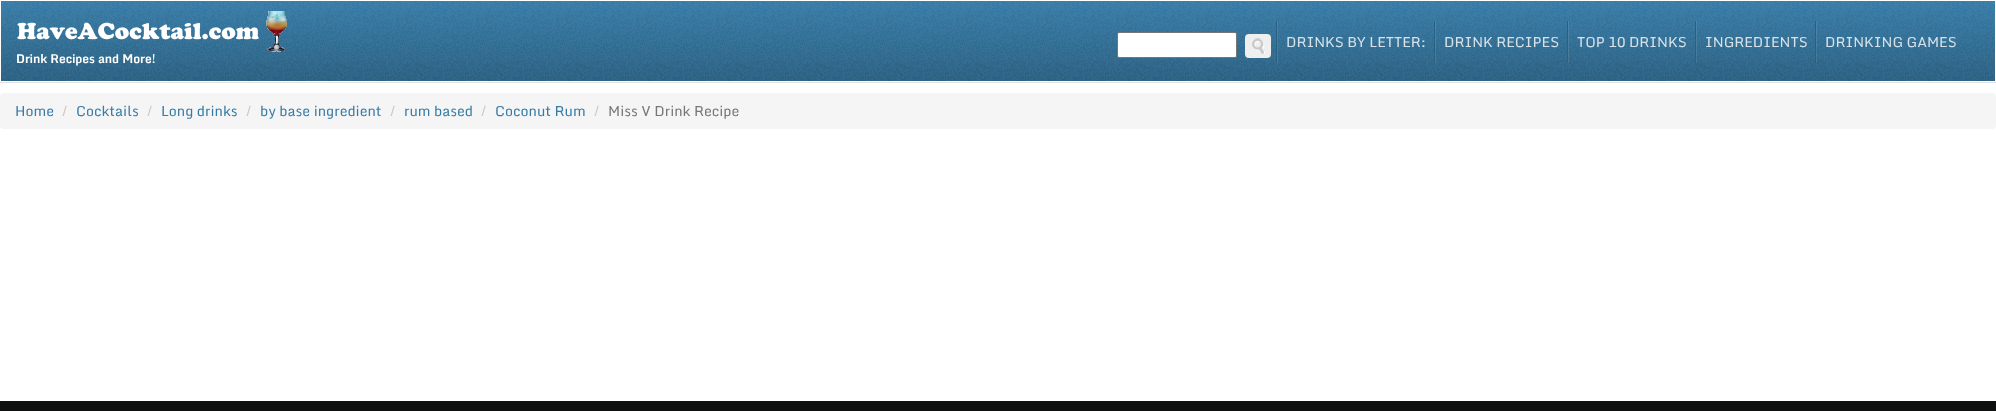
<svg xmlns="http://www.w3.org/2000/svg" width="1996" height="411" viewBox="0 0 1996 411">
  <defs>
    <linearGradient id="g1" gradientUnits="userSpaceOnUse" x1="998" y1="1" x2="998" y2="81"><stop offset="0" stop-color="rgb(55,124,168)"/><stop offset="1" stop-color="rgb(42,96,130)"/></linearGradient>
  </defs>
  <rect width="100%" height="100%" fill="rgb(255,255,255)"/>
  <rect x="1" y="1" width="1994" height="80" fill="url(#g1)"/>
  <image x="1" y="1" width="1994" height="80" href="pic1.png"/>
  <rect x="1276" y="21" width="1" height="42" fill="rgb(42,96,130)"/>
  <rect x="1117.5" y="32.5" width="119" height="25" rx="1.5" fill="rgb(255,255,255)" stroke="rgb(118,118,118)"/>
  <rect x="1245" y="34" width="26" height="24" rx="4" fill="rgb(239,239,239)"/>
  <image x="1252" y="38" width="13" height="16" href="pic2.png"/>
  <rect x="1434" y="21" width="1" height="42" fill="rgb(42,96,130)"/>
  <rect x="1277" y="21" width="1" height="42" fill="rgba(255,255,255,0.1)"/>
  <text x="1286" y="47" font-family="Monda" font-size="14" fill="rgb(213,226,234)">DRINKS BY LETTER:</text>
  <rect x="1567" y="21" width="1" height="42" fill="rgb(42,96,130)"/>
  <rect x="1435" y="21" width="1" height="42" fill="rgba(255,255,255,0.1)"/>
  <text x="1444" y="47" font-family="Monda" font-size="14" fill="rgb(213,226,234)">DRINK RECIPES</text>
  <rect x="1695" y="21" width="1" height="42" fill="rgb(42,96,130)"/>
  <rect x="1568" y="21" width="1" height="42" fill="rgba(255,255,255,0.1)"/>
  <text x="1577" y="47" font-family="Monda" font-size="14" fill="rgb(213,226,234)">TOP 10 DRINKS</text>
  <rect x="1815" y="21" width="1" height="42" fill="rgb(42,96,130)"/>
  <rect x="1696" y="21" width="1" height="42" fill="rgba(255,255,255,0.1)"/>
  <text x="1705" y="47" font-family="Monda" font-size="14" fill="rgb(213,226,234)">INGREDIENTS</text>
  <rect x="1816" y="21" width="1" height="42" fill="rgba(255,255,255,0.1)"/>
  <text x="1825" y="47" font-family="Monda" font-size="14" fill="rgb(213,226,234)">DRINKING GAMES</text>
  <image x="17" y="11" width="270" height="41" href="pic3.png"/>
  <text x="16" y="63" font-family="Monda" font-size="12" font-weight="bold" fill="rgb(255,255,255)">Drink Recipes and More!</text>
  <rect x="0" y="82" width="1996" height="1" fill="rgb(225,225,225)"/>
  <rect x="0" y="93" width="1996" height="36" rx="4" fill="rgb(245,245,245)"/>
  <text x="15" y="116" font-family="Monda" font-size="14" fill="rgb(55,124,168)">Home</text>
  <text x="62" y="116" font-family="Monda" font-size="14" fill="rgb(204,204,204)">/</text>
  <text x="76" y="116" font-family="Monda" font-size="14" fill="rgb(55,124,168)">Cocktails</text>
  <text x="147" y="116" font-family="Monda" font-size="14" fill="rgb(204,204,204)">/</text>
  <text x="161" y="116" font-family="Monda" font-size="14" fill="rgb(55,124,168)">Long drinks</text>
  <text x="246" y="116" font-family="Monda" font-size="14" fill="rgb(204,204,204)">/</text>
  <text x="260" y="116" font-family="Monda" font-size="14" fill="rgb(55,124,168)">by base ingredient</text>
  <text x="390" y="116" font-family="Monda" font-size="14" fill="rgb(204,204,204)">/</text>
  <text x="404" y="116" font-family="Monda" font-size="14" fill="rgb(55,124,168)">rum based</text>
  <text x="481" y="116" font-family="Monda" font-size="14" fill="rgb(204,204,204)">/</text>
  <text x="495" y="116" font-family="Monda" font-size="14" fill="rgb(55,124,168)">Coconut Rum</text>
  <text x="594" y="116" font-family="Monda" font-size="14" fill="rgb(204,204,204)">/</text>
  <text x="608" y="116" font-family="Monda" font-size="14" fill="rgb(119,119,119)">Miss V Drink Recipe</text>
  <rect x="0" y="401" width="1996" height="10" fill="rgb(14,15,15)"/>
</svg>
